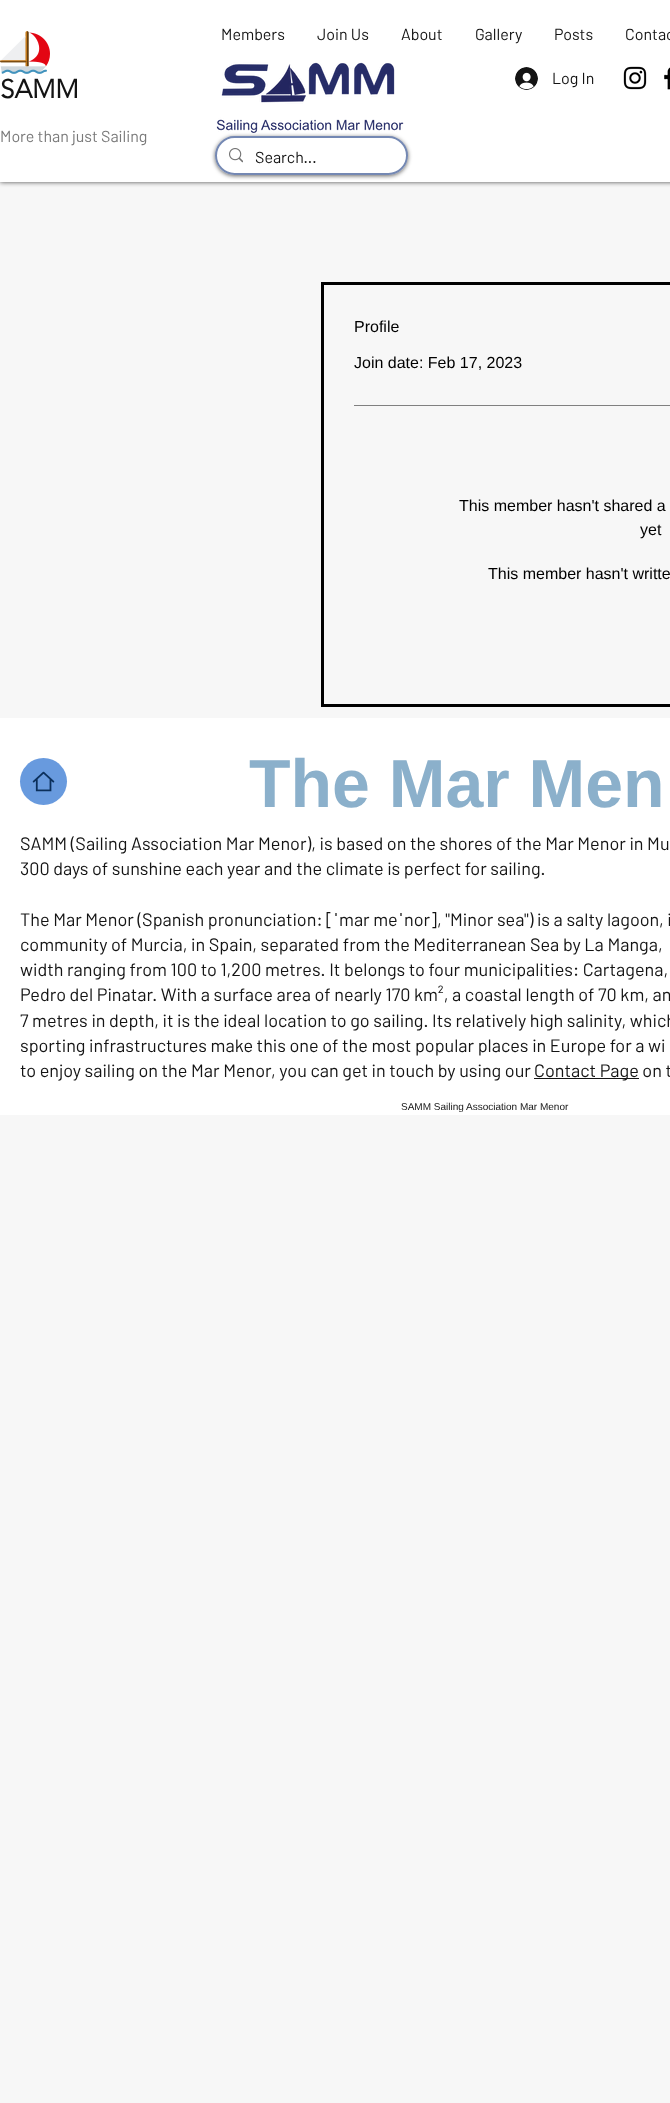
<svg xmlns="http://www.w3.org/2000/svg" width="670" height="2103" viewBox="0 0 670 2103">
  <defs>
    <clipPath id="clip1"><path d="M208 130H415V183H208ZM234.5 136H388.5C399.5 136 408 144.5 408 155.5C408 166.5 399.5 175 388.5 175H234.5C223.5 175 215 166.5 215 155.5C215 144.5 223.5 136 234.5 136Z" clip-rule="evenodd"/></clipPath>
  </defs>
  <rect width="100%" height="100%" fill="rgb(247,247,247)"/>
  <rect x="0" y="0" width="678" height="182" fill="rgba(0,0,0,0.7)" filter="blur(2.5px)"/>
  <rect x="0" y="0" width="670" height="182" fill="rgb(255,255,255)"/>
  <image x="0" y="31" width="50" height="43" href="pic1.png"/>
  <text x="0" y="98" font-family="'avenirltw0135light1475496'" font-size="26" font-weight="bold" fill="rgb(20,20,20)">SAMM</text>
  <text x="0" y="142" font-family="Barlow" font-size="16" fill="rgb(122,122,122)">More than just Sailing</text>
  <g font-family="Barlow" font-size="16" fill="rgb(20,20,20)">
    <text x="221" y="40">Members</text>
    <text x="317" y="40">Join Us</text>
    <text x="401" y="40">About</text>
    <text x="475" y="40">Gallery</text>
    <text x="554" y="40">Posts</text>
    <text x="625" y="40">Contac</text>
  </g>
  <image x="216" y="62" width="188" height="71" href="pic2.png"/>
  <image x="515" y="67" width="23" height="23" href="pic3.png"/>
  <text x="552" y="84" font-family="Barlow" font-size="16" fill="rgb(20,20,20)">Log In</text>
  <image x="623" y="66" width="24" height="24" href="pic4.png"/>
  <image x="664" y="67" width="6" height="23" href="pic5.png"/>
  <g clip-path="url(#clip1)">
    <rect x="215" y="137" width="193" height="39" rx="19.5" fill="rgba(0,0,0,0.6)" filter="blur(2px)"/>
  </g>
  <rect x="216" y="137" width="191" height="37" rx="18.5" fill="none" stroke="rgba(24,57,129,0.6)" stroke-width="2"/>
  <image x="229" y="148" width="14" height="15" href="pic6.png"/>
  <text x="255" y="163" font-family="Barlow" font-size="16" fill="rgb(20,20,20)">Search...</text>
  <rect x="322.5" y="283.5" width="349" height="422" fill="none" stroke="rgb(0,0,0)" stroke-width="3"/>
  <g font-family="Liberation Sans" font-size="16" fill="rgb(0,0,0)">
    <text x="354" y="332">Profile</text>
    <text x="354" y="368">Join date: Feb 17, 2023</text>
  </g>
  <rect x="354" y="405" width="316" height="1" fill="rgb(128,128,128)"/>
  <g font-family="Liberation Sans" font-size="16" fill="rgb(0,0,0)">
    <text x="459" y="511">This member hasn't shared a</text>
    <text x="640" y="535">yet</text>
    <text x="488" y="579">This member hasn't writte</text>
  </g>
  <rect x="0" y="718" width="670" height="397" fill="rgb(255,255,255)"/>
  <text x="249" y="807" font-family="Liberation Sans" font-size="68" font-weight="bold" fill="rgb(139,176,203)">The Mar Men</text>
  <g font-family="Barlow" font-size="18" fill="rgb(20,20,20)">
    <text>
      <tspan x="20" y="850">SAMM (Sailing Association Mar Menor), is based on the shores of the Mar Menor in Mu</tspan>
      <tspan x="20" y="875">300 days of sunshine each year and the climate is perfect for sailing.</tspan>
    </text>
    <text x="20" y="926">The Mar Menor (Spanish pronunciation: [</text>
  </g>
  <text x="333" y="926" font-family="Liberation Sans" font-size="18" font-weight="bold" fill="rgb(20,20,20)">ˈ</text>
  <text x="339" y="926" font-family="Barlow" font-size="18" fill="rgb(20,20,20)">mar me</text>
  <text x="398" y="926" font-family="Liberation Sans" font-size="18" font-weight="bold" fill="rgb(20,20,20)">ˈ</text>
  <g font-family="Barlow" font-size="18" fill="rgb(20,20,20)">
    <text x="404" y="926">nor], "Minor sea") is a salty lagoon, i</text>
    <text>
      <tspan x="20" y="951">community of Murcia, in Spain, separated from the Mediterranean Sea by La Manga,</tspan>
      <tspan x="20" y="976">width ranging from 100 to 1,200 metres. It belongs to four municipalities: Cartagena,</tspan>
      <tspan x="20" y="1001">Pedro del Pinatar. With a surface area of nearly 170 km², a coastal length of 70 km, an</tspan>
      <tspan x="20" y="1027">7 metres in depth, it is the ideal location to go sailing. Its relatively high salinity, which</tspan>
      <tspan x="20" y="1052">sporting infrastructures make this one of the most popular places in Europe for a wi</tspan>
      <tspan x="20" y="1077">to enjoy sailing on the Mar Menor, you can get in touch by using our</tspan>
    </text>
  </g>
  <rect x="534" y="1078" width="105" height="1" fill="rgb(20,20,20)"/>
  <text x="534" y="1077" font-family="Barlow" font-size="18" fill="rgb(20,20,20)">Contact Page on t</text>
  <circle cx="43.5" cy="781.5" r="23.5" fill="rgb(104,154,222)"/>
  <image x="32" y="771" width="23" height="21" href="pic7.png"/>
  <text x="401" y="1110" font-family="Liberation Sans" font-size="10" fill="rgb(20,20,20)">SAMM Sailing Association Mar Menor</text>
</svg>
